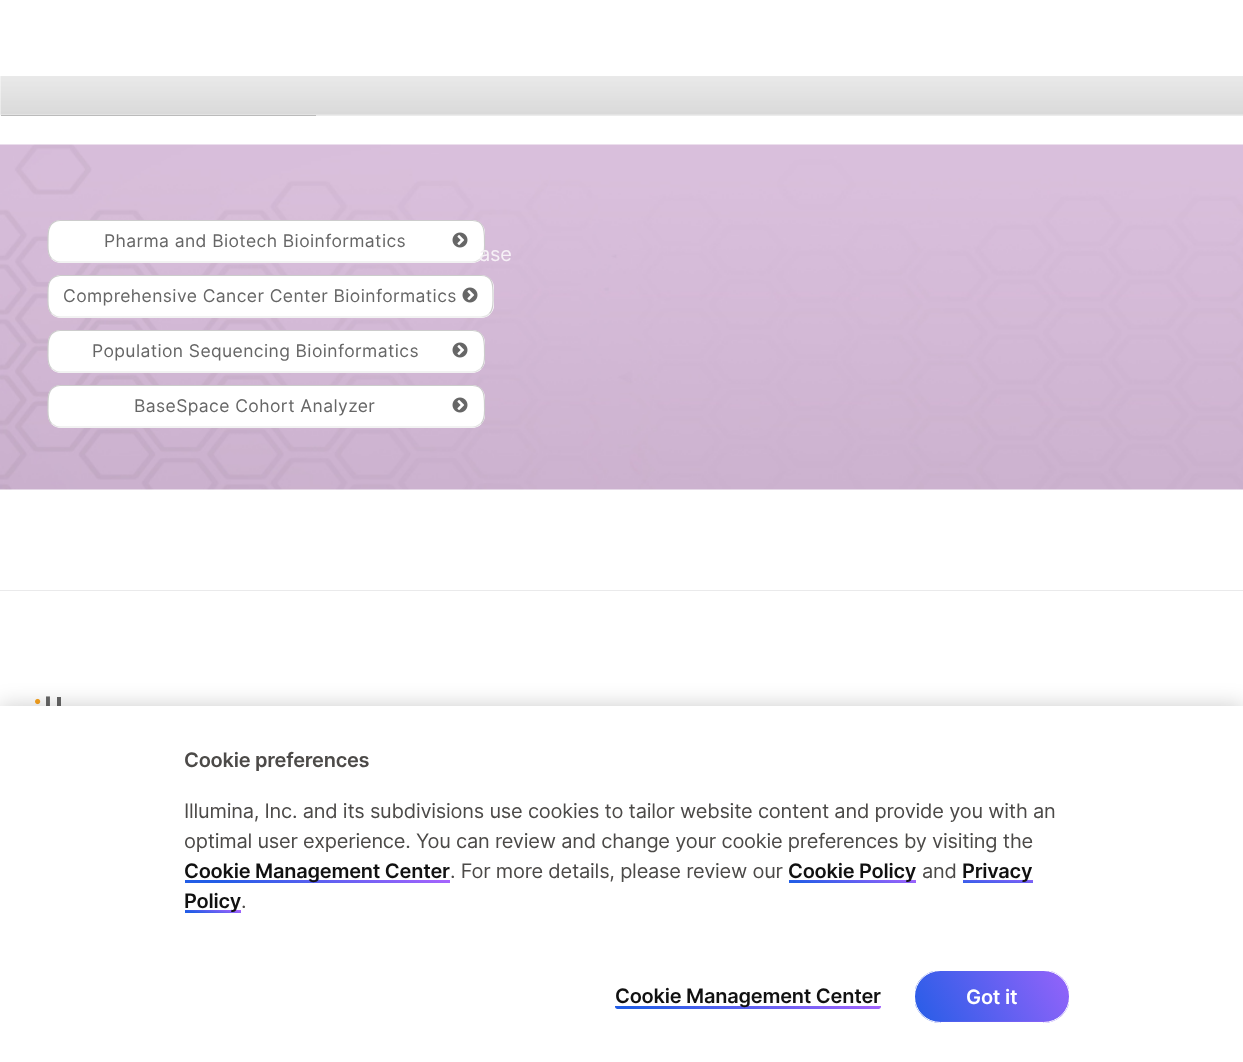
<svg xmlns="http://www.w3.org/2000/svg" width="1243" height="1062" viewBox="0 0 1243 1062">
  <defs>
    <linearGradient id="g1" gradientUnits="userSpaceOnUse" x1="314" y1="902" x2="321" y2="860"><stop offset="0.1" stop-color="rgb(34,93,230)"/><stop offset="1" stop-color="rgb(166,100,253)"/></linearGradient>
    <linearGradient id="g2" gradientUnits="userSpaceOnUse" x1="851" y1="892" x2="854" y2="871"><stop offset="0.1" stop-color="rgb(34,93,230)"/><stop offset="1" stop-color="rgb(166,100,253)"/></linearGradient>
    <linearGradient id="g3" gradientUnits="userSpaceOnUse" x1="997" y1="888" x2="998" y2="875"><stop offset="0.1" stop-color="rgb(34,93,230)"/><stop offset="1" stop-color="rgb(166,100,253)"/></linearGradient>
    <linearGradient id="g4" gradientUnits="userSpaceOnUse" x1="212" y1="917" x2="214" y2="906"><stop offset="0.1" stop-color="rgb(34,93,230)"/><stop offset="1" stop-color="rgb(166,100,253)"/></linearGradient>
    <linearGradient id="g5" gradientUnits="userSpaceOnUse" x1="745" y1="1028" x2="751" y2="987"><stop offset="0.1" stop-color="rgb(34,93,230)"/><stop offset="1" stop-color="rgb(166,100,253)"/></linearGradient>
    <clipPath id="clip1"><rect x="914" y="970" width="156" height="53" rx="26.5"/></clipPath>
    <linearGradient id="g6" gradientUnits="userSpaceOnUse" x1="916" y1="1037" x2="1084" y2="946"><stop offset="0" stop-color="rgb(34,93,230)"/><stop offset="1" stop-color="rgb(166,100,253)"/></linearGradient>
    <linearGradient id="g7" gradientUnits="userSpaceOnUse" x1="916" y1="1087" x2="1084" y2="996"><stop offset="0" stop-color="rgb(34,93,230)"/><stop offset="1" stop-color="rgb(166,100,253)"/></linearGradient>
  </defs>
  <rect width="100%" height="100%" fill="rgb(255,255,255)"/>
  <image x="0" y="76" width="1243" height="40" href="pic1.png"/>
  <rect x="0" y="76" width="1" height="39" fill="rgba(255,255,255,0.4)"/>
  <path d="M0 115H316C316 115.5 315.5 116 315 116H1C.5 116 0 115.5 0 115Z" fill="rgb(251,251,251)"/>
  <rect x="1" y="115" width="315" height="1" fill="rgb(187,187,187)"/>
  <image x="0" y="144" width="1243" height="346" href="pic2.png"/>
  <rect x="48" y="220" width="437" height="43" rx="13" fill="rgb(255,255,255)"/>
  <path d="M481 258.5C478.5 260.5 475.5 262 472.5 262H60C57 262 54 260.5 51.5 258.5" fill="none" stroke="rgb(229,229,229)" stroke-width="1.2"/>
  <path d="M51.5 258.5C47 254 48 247 48 241C48 233.5 47.5 224 56.5 221L60 220.5H472.5C485 220.5 484.5 232.5 484.5 241C484.5 247 485.5 254 481 258.5" fill="none" stroke="rgb(204,204,204)" stroke-width="1.2"/>
  <text x="104" y="247" font-family="Inter" font-size="17.5" letter-spacing="0.4" fill="rgb(102,102,102)">Pharma and Biotech Bioinformatics</text>
  <image x="452" y="232" width="16" height="16" href="pic3.png"/>
  <rect x="48" y="275" width="446" height="43" rx="13" fill="rgb(255,255,255)"/>
  <path d="M489.5 313.5C487.5 315.5 484.5 317 481 317H60C57 317 54 315.5 51.5 313.5" fill="none" stroke="rgb(229,229,229)" stroke-width="1.2"/>
  <path d="M51.5 313.5C47 309 48 302 48 296C48 289 47 280 55.5 276.5L60 275.5H481C494 275.5 493 287.5 493 296C493 302 494 309 489.5 313.5" fill="none" stroke="rgb(204,204,204)" stroke-width="1.2"/>
  <text x="63" y="302" font-family="Inter" font-size="17.5" letter-spacing="0.4" fill="rgb(102,102,102)">Comprehensive Cancer Center Bioinformatics</text>
  <image x="462" y="287" width="16" height="16" href="pic3.png"/>
  <rect x="48" y="330" width="437" height="43" rx="13" fill="rgb(255,255,255)"/>
  <path d="M481 368.5C478.5 370.5 475.5 372 472.5 372H60C57 372 54 370.5 51.5 368.5" fill="none" stroke="rgb(229,229,229)" stroke-width="1.2"/>
  <path d="M51.5 368.5C47 364 48 357 48 351C48 343.5 47.5 334 56.5 331L60 330.5H472.5C485 330.5 484.5 342.5 484.5 351C484.5 357 485.5 364 481 368.5" fill="none" stroke="rgb(204,204,204)" stroke-width="1.2"/>
  <text x="92" y="357" font-family="Inter" font-size="17.5" letter-spacing="0.4" fill="rgb(102,102,102)">Population Sequencing Bioinformatics</text>
  <image x="452" y="342" width="16" height="16" href="pic3.png"/>
  <rect x="48" y="385" width="437" height="43" rx="13" fill="rgb(255,255,255)"/>
  <path d="M481 423.5C478.5 425.5 475.5 427 472.5 427H60C57 427 54 425.5 51.5 423.5" fill="none" stroke="rgb(229,229,229)" stroke-width="1.2"/>
  <path d="M51.5 423.5C47 419 48 412 48 406C48 398.5 47.5 389 56.5 386L60 385.5H472.5C485 385.5 484.5 397.5 484.5 406C484.5 412 485.5 419 481 423.5" fill="none" stroke="rgb(204,204,204)" stroke-width="1.2"/>
  <text x="134" y="412" font-family="Inter" font-size="17.5" letter-spacing="0.4" fill="rgb(102,102,102)">BaseSpace Cohort Analyzer</text>
  <image x="452" y="397" width="16" height="16" href="pic3.png"/>
  <text x="479" y="261" font-family="Inter" font-size="20" letter-spacing="-0.22" fill="rgb(246,240,246)">ase</text>
  <rect x="0" y="590" width="1243" height="1" fill="rgb(234,234,235)"/>
  <image x="35" y="696" width="26" height="10" href="pic4.png"/>
  <rect x="0" y="706" width="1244" height="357" fill="rgba(0,0,0,0.2)" filter="blur(11px)"/>
  <rect x="0" y="706" width="1243" height="356" fill="rgb(255,255,255)"/>
  <text x="184" y="767" font-family="Inter" font-size="20" font-weight="600" letter-spacing="-0.22" fill="rgb(76,74,72)">Cookie preferences</text>
  <g font-family="Inter" font-size="20" letter-spacing="-0.22" fill="rgb(76,74,72)">
    <text>
      <tspan x="184" y="818">Illumina, Inc. and its subdivisions use cookies to tailor website content and provide you with an</tspan>
      <tspan x="184" y="848">optimal user experience. You can review and change your cookie preferences by visiting the</tspan>
    </text>
  </g>
  <rect x="185" y="880" width="265" height="3" fill="url(#g1)"/>
  <text x="184" y="878" font-family="Inter" font-size="20" font-weight="600" letter-spacing="-0.22" fill="rgb(17,17,17)">Cookie Management Center</text>
  <text x="450" y="878" font-family="Inter" font-size="20" letter-spacing="-0.22" fill="rgb(76,74,72)">. For more details, please review our</text>
  <rect x="789" y="880" width="127" height="3" fill="url(#g2)"/>
  <text x="788" y="878" font-family="Inter" font-size="20" font-weight="600" letter-spacing="-0.22" fill="rgb(17,17,17)">Cookie Policy</text>
  <text x="922" y="878" font-family="Inter" font-size="20" letter-spacing="-0.22" fill="rgb(76,74,72)">and</text>
  <rect x="963" y="880" width="70" height="3" fill="url(#g3)"/>
  <text x="962" y="878" font-family="Inter" font-size="20" font-weight="600" letter-spacing="-0.22" fill="rgb(17,17,17)">Privacy</text>
  <rect x="185" y="910" width="56" height="3" fill="url(#g4)"/>
  <text x="184" y="908" font-family="Inter" font-size="20" font-weight="600" letter-spacing="-0.22" fill="rgb(17,17,17)">Policy</text>
  <text x="241" y="908" font-family="Inter" font-size="20" letter-spacing="-0.22" fill="rgb(76,74,72)">.</text>
  <path d="M615 1006H881V1006.5C881 1008 880 1009 878.5 1009H617.5C616 1009 615 1008 615 1006.5Z" fill="url(#g5)"/>
  <text x="615" y="1003" font-family="Inter" font-size="20" font-weight="600" letter-spacing="-0.22" fill="rgb(17,17,17)">Cookie Management Center</text>
  <g clip-path="url(#clip1)">
    <rect x="915" y="971" width="154" height="50" fill="url(#g6)"/>
    <rect x="930" y="1021" width="124" height="2" fill="url(#g7)"/>
  </g>
  <rect x="914.5" y="970.5" width="155" height="52" rx="26" fill="none" stroke="rgb(255,255,255)"/>
  <text x="966" y="1004" font-family="Inter" font-size="20" font-weight="600" letter-spacing="-0.22" fill="rgb(255,255,255)">Got it</text>
</svg>
